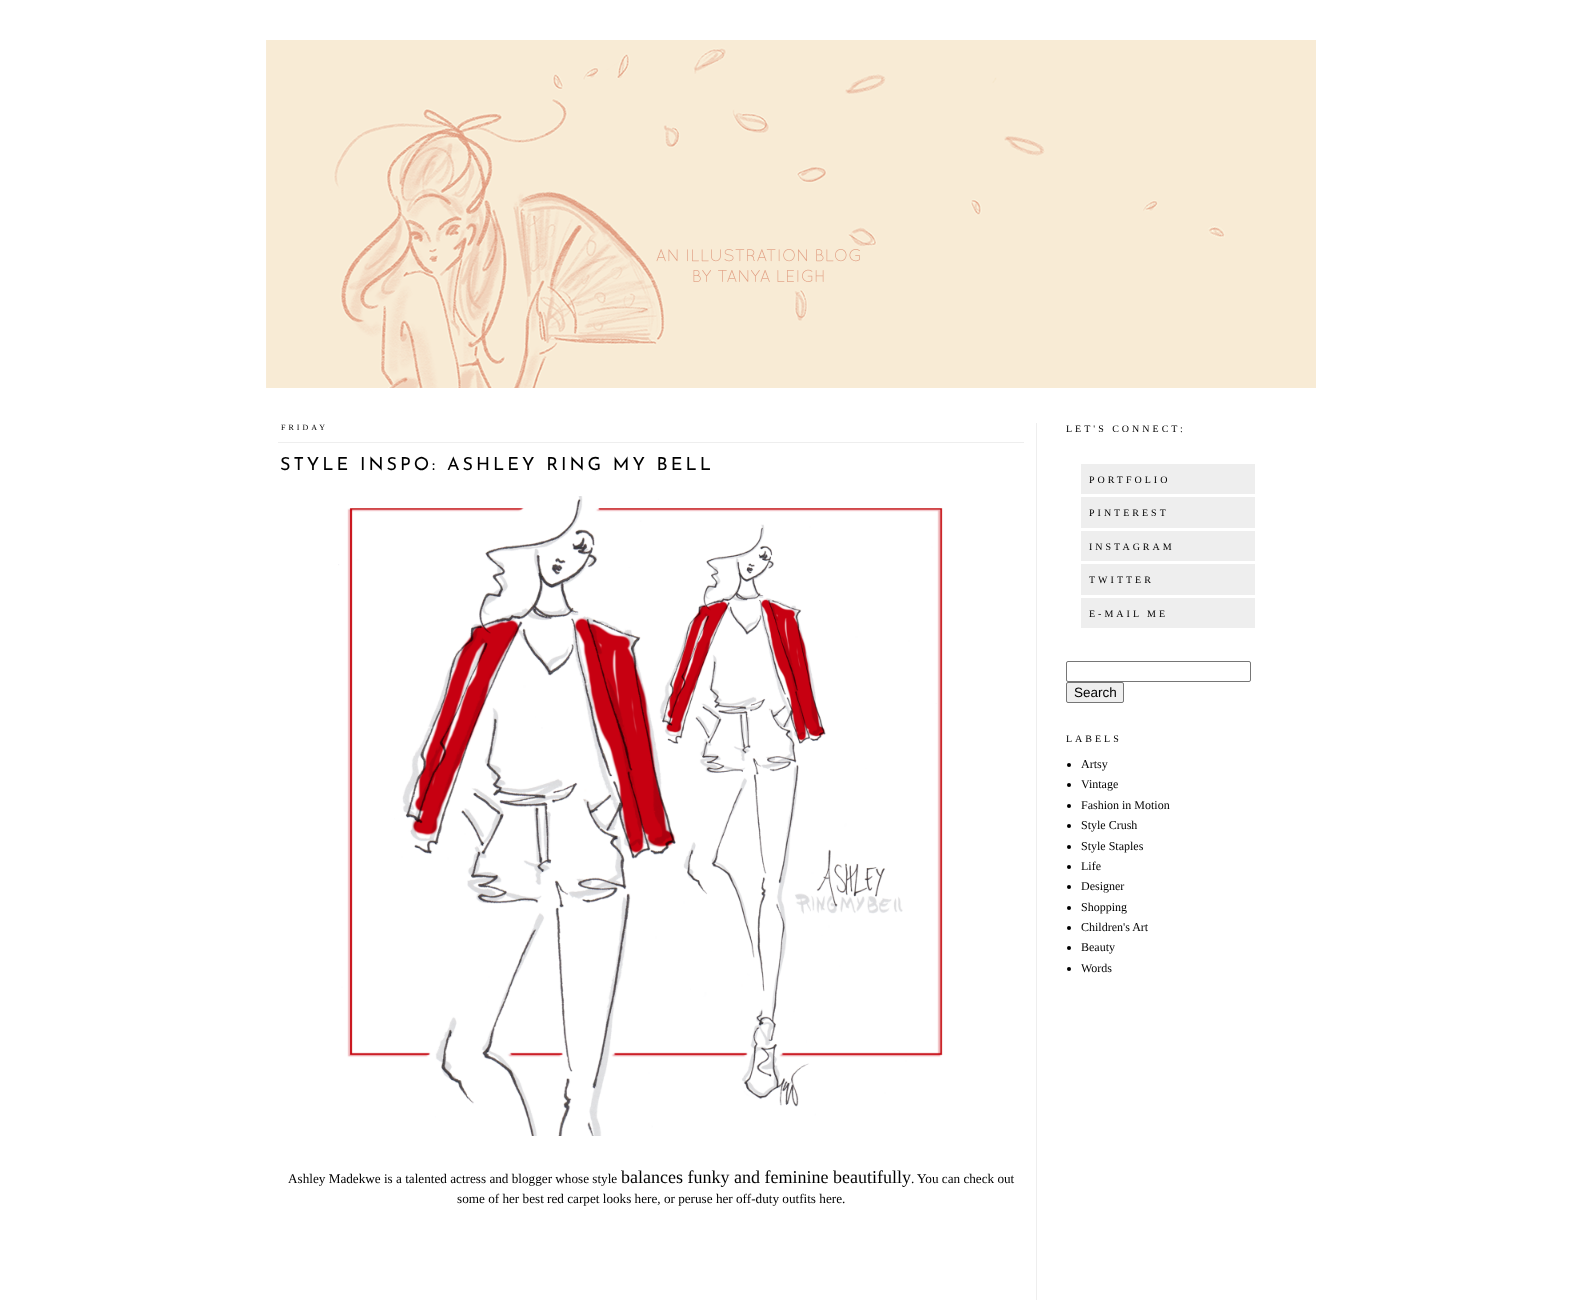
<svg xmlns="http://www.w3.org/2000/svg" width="1582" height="1300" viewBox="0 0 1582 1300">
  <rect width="100%" height="100%" fill="rgb(255,255,255)"/>
  <image x="266" y="40" width="1050" height="348" href="pic1.png"/>
  <rect x="1036" y="423" width="1" height="877" fill="rgb(238,238,238)"/>
  <rect x="278" y="442" width="746" height="1" fill="rgb(238,238,238)"/>
  <text x="281" y="430" font-family="Liberation Serif" font-size="8" letter-spacing="3" fill="rgb(0,0,0)">FRIDAY</text>
  <text x="280" y="470" font-family="Josefin Sans" font-size="18" font-weight="100" letter-spacing="3" fill="rgb(0,0,0)">STYLE INSPO: ASHLEY RING MY BELL</text>
  <image x="338" y="496" width="605" height="640" href="pic2.png"/>
  <text x="288" y="1183" font-family="Liberation Serif" font-size="13.2" fill="rgb(0,0,0)">Ashley Madekwe is a talented actress and blogger whose style</text>
  <text x="621" y="1183" font-family="Liberation Serif" font-size="18" fill="rgb(0,0,0)">balances funky and feminine beautifully</text>
  <g font-family="Liberation Serif" font-size="13.2" fill="rgb(0,0,0)">
    <text x="911" y="1183">. You can check out</text>
    <text x="457" y="1203">some of her best red carpet looks here, or peruse her off-duty outfits here.</text>
  </g>
  <text x="1066" y="432" font-family="Liberation Serif" font-size="10" letter-spacing="3" fill="rgb(0,0,0)">LET'S CONNECT:</text>
  <rect x="1081" y="464" width="174" height="30" fill="rgb(238,238,238)"/>
  <text x="1089" y="483" font-family="Liberation Serif" font-size="10" letter-spacing="3" fill="rgb(0,0,0)">PORTFOLIO</text>
  <rect x="1081" y="497" width="174" height="31" fill="rgb(238,238,238)"/>
  <text x="1089" y="516" font-family="Liberation Serif" font-size="10" letter-spacing="3" fill="rgb(0,0,0)">PINTEREST</text>
  <rect x="1081" y="531" width="174" height="30" fill="rgb(238,238,238)"/>
  <text x="1089" y="550" font-family="Liberation Serif" font-size="10" letter-spacing="3" fill="rgb(0,0,0)">INSTAGRAM</text>
  <rect x="1081" y="564" width="174" height="31" fill="rgb(238,238,238)"/>
  <text x="1089" y="583" font-family="Liberation Serif" font-size="10" letter-spacing="3" fill="rgb(0,0,0)">TWITTER</text>
  <rect x="1081" y="598" width="174" height="30" fill="rgb(238,238,238)"/>
  <text x="1089" y="617" font-family="Liberation Serif" font-size="10" letter-spacing="3" fill="rgb(0,0,0)">E-MAIL ME</text>
  <rect x="1066.5" y="661.5" width="184" height="20" rx="1.5" fill="none" stroke="rgb(118,118,118)"/>
  <rect x="1066.5" y="682.5" width="57" height="20" rx="1.5" fill="rgb(239,239,239)" stroke="rgb(118,118,118)"/>
  <text x="1074" y="697" font-family="Liberation Sans" font-size="13.5" fill="rgb(0,0,0)">Search</text>
  <text x="1066" y="742" font-family="Liberation Serif" font-size="10" letter-spacing="3" fill="rgb(0,0,0)">LABELS</text>
  <circle cx="1069" cy="765" r="2" fill="rgb(0,0,0)"/>
  <text x="1081" y="768" font-family="Liberation Serif" font-size="12" fill="rgb(0,0,0)">Artsy</text>
  <circle cx="1069" cy="785" r="2" fill="rgb(0,0,0)"/>
  <text x="1081" y="788" font-family="Liberation Serif" font-size="12" fill="rgb(0,0,0)">Vintage</text>
  <circle cx="1069" cy="806" r="2" fill="rgb(0,0,0)"/>
  <text x="1081" y="809" font-family="Liberation Serif" font-size="12" fill="rgb(0,0,0)">Fashion in Motion</text>
  <circle cx="1069" cy="826" r="2" fill="rgb(0,0,0)"/>
  <text x="1081" y="829" font-family="Liberation Serif" font-size="12" fill="rgb(0,0,0)">Style Crush</text>
  <circle cx="1069" cy="847" r="2" fill="rgb(0,0,0)"/>
  <text x="1081" y="850" font-family="Liberation Serif" font-size="12" fill="rgb(0,0,0)">Style Staples</text>
  <circle cx="1069" cy="867" r="2" fill="rgb(0,0,0)"/>
  <text x="1081" y="870" font-family="Liberation Serif" font-size="12" fill="rgb(0,0,0)">Life</text>
  <circle cx="1069" cy="887" r="2" fill="rgb(0,0,0)"/>
  <text x="1081" y="890" font-family="Liberation Serif" font-size="12" fill="rgb(0,0,0)">Designer</text>
  <circle cx="1069" cy="908" r="2" fill="rgb(0,0,0)"/>
  <text x="1081" y="911" font-family="Liberation Serif" font-size="12" fill="rgb(0,0,0)">Shopping</text>
  <circle cx="1069" cy="928" r="2" fill="rgb(0,0,0)"/>
  <text x="1081" y="931" font-family="Liberation Serif" font-size="12" fill="rgb(0,0,0)">Children's Art</text>
  <circle cx="1069" cy="948" r="2" fill="rgb(0,0,0)"/>
  <text x="1081" y="951" font-family="Liberation Serif" font-size="12" fill="rgb(0,0,0)">Beauty</text>
  <circle cx="1069" cy="969" r="2" fill="rgb(0,0,0)"/>
  <text x="1081" y="972" font-family="Liberation Serif" font-size="12" fill="rgb(0,0,0)">Words</text>
</svg>
